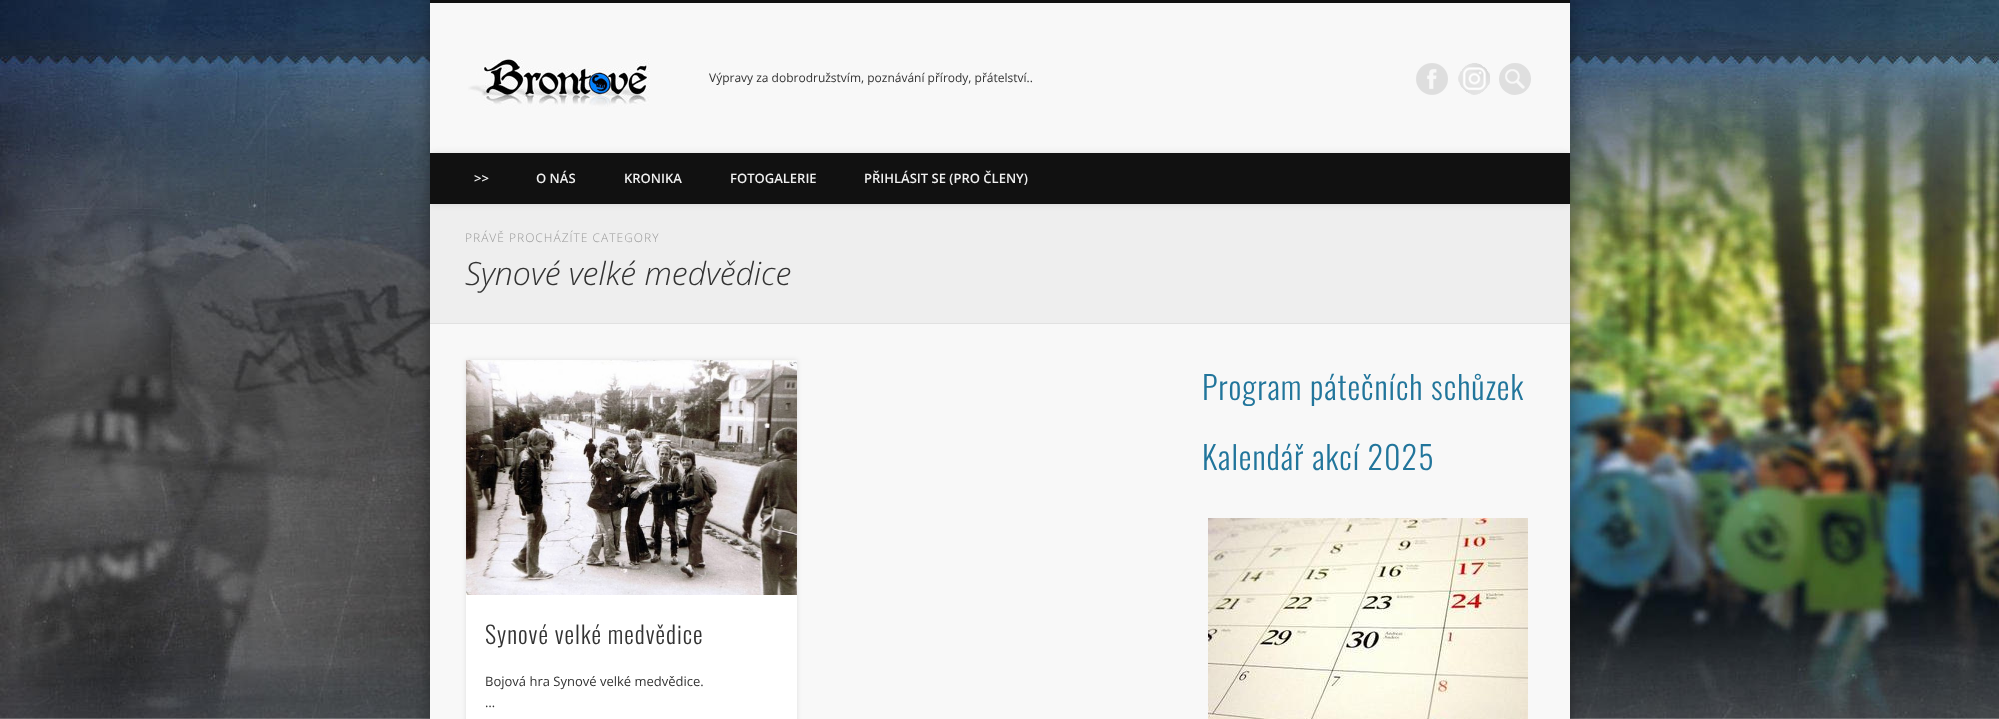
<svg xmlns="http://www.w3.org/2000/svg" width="1999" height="719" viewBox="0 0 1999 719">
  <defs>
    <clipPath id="clip1"><rect x="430" y="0" width="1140" height="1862"/></clipPath>
  </defs>
  <rect width="100%" height="100%" fill="rgb(255,255,255)"/>
  <image x="0" y="0" width="1999" height="719" href="pic1.png"/>
  <rect x="430" y="0" width="1140" height="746" fill="rgba(0,0,0,0.4)" filter="blur(9px)"/>
  <rect x="430" y="3" width="1140" height="716" fill="rgb(248,248,248)"/>
  <rect x="430" y="0" width="1140" height="3" fill="rgb(17,17,17)"/>
  <image x="468" y="59" width="182" height="48" href="pic2.png"/>
  <text x="709" y="82" font-family="Open Sans" font-size="12" fill="rgb(51,51,51)">Výpravy za dobrodružstvím, poznávání přírody, přátelství..</text>
  <image x="1416" y="63" width="32" height="32" href="pic3.png"/>
  <image x="1458" y="63" width="32" height="32" href="pic4.png"/>
  <circle cx="1515" cy="79" r="16" fill="rgb(223,223,223)"/>
  <image x="1505" y="69" width="20" height="20" href="pic5.png"/>
  <rect x="430" y="204" width="1140" height="119" fill="rgb(238,238,238)"/>
  <g clip-path="url(#clip1)">
    <rect x="430" y="153" width="1140" height="51" fill="rgba(0,0,0,0.1)" filter="blur(3.5px)"/>
  </g>
  <rect x="430" y="153" width="1140" height="51" fill="rgb(17,17,17)"/>
  <g font-family="Open Sans" font-size="13" font-weight="600" fill="rgb(240,240,240)">
    <text x="474" y="183">&gt;&gt;</text>
    <text x="536" y="183">O NÁS</text>
    <text x="624" y="183">KRONIKA</text>
    <text x="730" y="183">FOTOGALERIE</text>
    <text x="864" y="183">PŘIHLÁSIT SE (PRO ČLENY)</text>
  </g>
  <rect x="430" y="323" width="1140" height="1" fill="rgb(225,225,225)"/>
  <text x="465" y="242" font-family="Open Sans" font-size="12" font-weight="300" letter-spacing="1" fill="rgb(153,153,153)">PRÁVĚ PROCHÁZÍTE CATEGORY</text>
  <text x="465" y="285" font-family="Open Sans" font-size="32" font-weight="300" font-style="italic" fill="rgb(51,51,51)">Synové velké medvědice</text>
  <g font-family="Oswald" font-size="32" font-weight="300" letter-spacing="1" fill="rgb(33,117,155)">
    <text x="1202" y="400">Program pátečních schůzek</text>
    <text x="1202" y="470">Kalendář akcí 2025</text>
  </g>
  <image x="1208" y="518" width="320" height="201" href="pic6.png"/>
  <rect x="466" y="360" width="331" height="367" fill="rgba(0,0,0,0.1)" filter="blur(2.5px)"/>
  <rect x="466" y="595" width="331" height="124" fill="rgb(255,255,255)"/>
  <image x="466" y="360" width="331" height="235" href="pic7.png"/>
  <text x="485" y="644" font-family="Oswald" font-size="24" font-weight="300" letter-spacing="1" fill="rgb(51,51,51)">Synové velké medvědice</text>
  <g font-family="Open Sans" font-size="13" fill="rgb(51,51,51)">
    <text>
      <tspan x="485" y="686">Bojová hra Synové velké medvědice.</tspan>
      <tspan x="485" y="707">…</tspan>
    </text>
  </g>
</svg>
